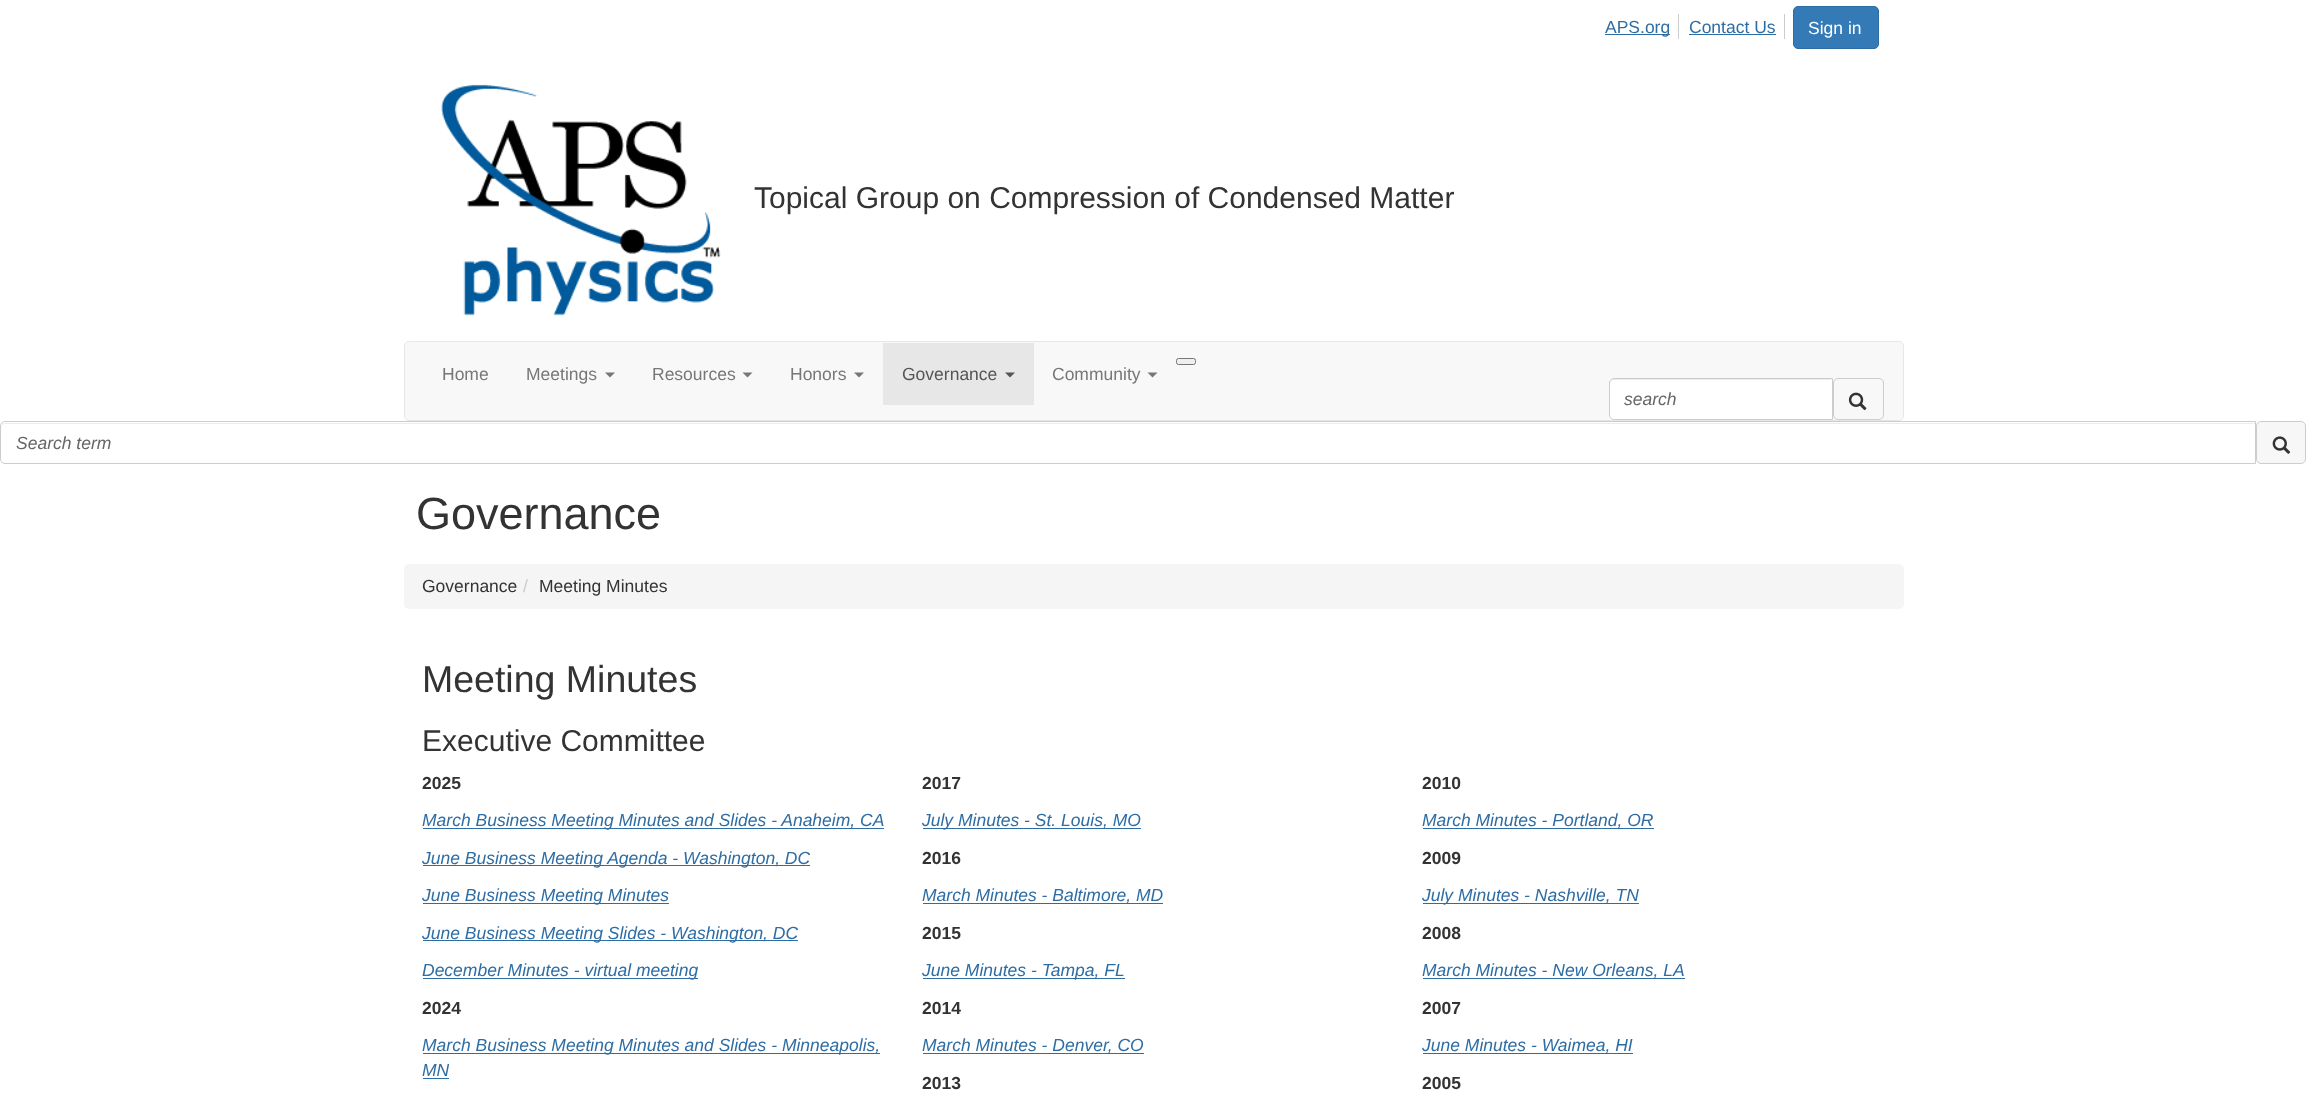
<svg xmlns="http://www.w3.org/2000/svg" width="2306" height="1099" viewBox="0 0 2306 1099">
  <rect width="100%" height="100%" fill="rgb(255,255,255)"/>
  <rect x="1678" y="14" width="1" height="25" fill="rgb(204,204,204)"/>
  <rect x="1605" y="34" width="65" height="1" fill="rgb(46,109,164)"/>
  <text x="1605" y="33" font-family="Liberation Sans" font-size="17.5" fill="rgb(46,109,164)">APS.org</text>
  <rect x="1784" y="14" width="1" height="25" fill="rgb(204,204,204)"/>
  <text x="1689" y="33" font-family="Liberation Sans" font-size="17.5" fill="rgb(46,109,164)">Contact Us</text>
  <rect x="1689" y="34" width="87" height="1" fill="rgb(46,109,164)"/>
  <rect x="1793.5" y="6.5" width="85" height="42" rx="4.5" fill="rgb(51,122,183)" stroke="rgb(46,109,164)"/>
  <text x="1808" y="34" font-family="Liberation Sans" font-size="17.5" fill="rgb(255,255,255)">Sign in</text>
  <image x="441" y="84" width="280" height="232" href="pic1.png"/>
  <text x="754" y="208" font-family="Liberation Sans" font-size="30" fill="rgb(51,51,51)">Topical Group on Compression of Condensed Matter</text>
  <rect x="404.5" y="341.5" width="1499" height="79" rx="4.5" fill="rgb(248,248,248)" stroke="rgb(231,231,231)"/>
  <rect x="1176.5" y="358.5" width="19" height="6" rx="2" fill="rgb(239,239,239)" stroke="rgb(118,118,118)"/>
  <g font-family="Liberation Sans" font-size="17.5" fill="rgb(119,119,119)">
    <text x="442" y="380">Home</text>
    <text x="526" y="380">Meetings</text>
  </g>
  <path d="M605 372.5H615L610 377.5Z" fill="rgb(119,119,119)"/>
  <text x="652" y="380" font-family="Liberation Sans" font-size="17.5" fill="rgb(119,119,119)">Resources</text>
  <path d="M742.5 372.5H752.5L747.5 377.5Z" fill="rgb(119,119,119)"/>
  <text x="790" y="380" font-family="Liberation Sans" font-size="17.5" fill="rgb(119,119,119)">Honors</text>
  <path d="M854 372.5H864L859 377.5Z" fill="rgb(119,119,119)"/>
  <rect x="883" y="343" width="151" height="62" fill="rgb(231,231,231)"/>
  <text x="902" y="380" font-family="Liberation Sans" font-size="17.5" fill="rgb(85,85,85)">Governance</text>
  <path d="M1005 372.5H1015L1010 377.5Z" fill="rgb(85,85,85)"/>
  <text x="1052" y="380" font-family="Liberation Sans" font-size="17.5" fill="rgb(119,119,119)">Community</text>
  <path d="M1147.5 372.5H1157.5L1152.5 377.5Z" fill="rgb(119,119,119)"/>
  <path d="M1614 378H1833V420H1614C1611 420 1609 418 1609 415V383C1609 380 1611 378 1614 378Z" fill="rgb(255,255,255)"/>
  <path d="M1614 380H1831V379H1614C1611 379 1610 381 1610 384C1610 382 1612 380 1614 380Z" fill="rgb(236,236,236)"/>
  <path d="M1614 378.5H1832.5V419.5H1614C1611.5 419.5 1609.5 417.5 1609.5 415V383C1609.5 380.5 1611.5 378.5 1614 378.5Z" fill="none" stroke="rgb(204,204,204)"/>
  <text x="1624" y="405" font-family="Liberation Sans" font-size="17.5" font-style="italic" fill="rgb(102,102,102)">search</text>
  <rect x="1833.5" y="378.5" width="50" height="41" rx="4.5" fill="none" stroke="rgb(204,204,204)"/>
  <image x="1848" y="392" width="19" height="19" href="pic2.png"/>
  <path d="M5 424H2255V423H5C3 423 1 425 1 427V428C1 425 3 424 5 424Z" fill="rgb(236,236,236)"/>
  <path d="M5 421.5H2255.5V463.5H5C2.5 463.5 .5 461.5 .5 459V426C.5 423.5 2.5 421.5 5 421.5Z" fill="none" stroke="rgb(204,204,204)"/>
  <text x="16" y="449" font-family="Liberation Sans" font-size="17.5" font-style="italic" fill="rgb(102,102,102)">Search term</text>
  <rect x="2256.5" y="421.5" width="49" height="42" rx="4.5" fill="rgb(247,247,247)" stroke="rgb(204,204,204)"/>
  <image x="2272" y="436" width="19" height="18" href="pic3.png"/>
  <text x="416" y="529" font-family="Liberation Sans" font-size="45" fill="rgb(51,51,51)">Governance</text>
  <rect x="404" y="564" width="1500" height="45" rx="5" fill="rgb(245,245,245)"/>
  <text x="422" y="592" font-family="Liberation Sans" font-size="17.5" fill="rgb(51,51,51)">Governance</text>
  <text x="523" y="592" font-family="Liberation Sans" font-size="17.5" fill="rgb(204,204,204)">/</text>
  <text x="539" y="592" font-family="Liberation Sans" font-size="17.5" fill="rgb(51,51,51)">Meeting Minutes</text>
  <text x="422" y="692" font-family="Liberation Sans" font-size="37.5" fill="rgb(51,51,51)">Meeting Minutes</text>
  <text x="422" y="751" font-family="Liberation Sans" font-size="30" fill="rgb(51,51,51)">Executive Committee</text>
  <text x="422" y="789" font-family="Liberation Sans" font-size="17.5" font-weight="bold" fill="rgb(51,51,51)">2025</text>
  <rect x="423" y="828" width="461" height="1" fill="rgb(46,109,164)"/>
  <text x="422" y="826" font-family="Liberation Sans" font-size="17.5" font-style="italic" fill="rgb(46,109,164)">March Business Meeting Minutes and Slides - Anaheim, CA</text>
  <rect x="423" y="865" width="387" height="1" fill="rgb(46,109,164)"/>
  <text x="422" y="864" font-family="Liberation Sans" font-size="17.5" font-style="italic" fill="rgb(46,109,164)">June Business Meeting Agenda - Washington, DC</text>
  <rect x="423" y="903" width="246" height="1" fill="rgb(46,109,164)"/>
  <text x="422" y="901" font-family="Liberation Sans" font-size="17.5" font-style="italic" fill="rgb(46,109,164)">June Business Meeting Minutes</text>
  <rect x="423" y="940" width="375" height="1" fill="rgb(46,109,164)"/>
  <text x="422" y="939" font-family="Liberation Sans" font-size="17.5" font-style="italic" fill="rgb(46,109,164)">June Business Meeting Slides - Washington, DC</text>
  <rect x="423" y="978" width="275" height="1" fill="rgb(46,109,164)"/>
  <text x="422" y="976" font-family="Liberation Sans" font-size="17.5" font-style="italic" fill="rgb(46,109,164)">December Minutes - virtual meeting</text>
  <text x="422" y="1014" font-family="Liberation Sans" font-size="17.5" font-weight="bold" fill="rgb(51,51,51)">2024</text>
  <rect x="423" y="1053" width="457" height="1" fill="rgb(46,109,164)"/>
  <g font-family="Liberation Sans" font-size="17.5" font-style="italic" fill="rgb(46,109,164)">
    <text>
      <tspan x="422" y="1051">March Business Meeting Minutes and Slides - Minneapolis,</tspan>
      <tspan x="422" y="1076">MN</tspan>
    </text>
  </g>
  <rect x="423" y="1078" width="26" height="1" fill="rgb(46,109,164)"/>
  <text x="922" y="789" font-family="Liberation Sans" font-size="17.5" font-weight="bold" fill="rgb(51,51,51)">2017</text>
  <rect x="923" y="828" width="218" height="1" fill="rgb(46,109,164)"/>
  <text x="922" y="826" font-family="Liberation Sans" font-size="17.5" font-style="italic" fill="rgb(46,109,164)">July Minutes - St. Louis, MO</text>
  <text x="922" y="864" font-family="Liberation Sans" font-size="17.5" font-weight="bold" fill="rgb(51,51,51)">2016</text>
  <rect x="923" y="903" width="240" height="1" fill="rgb(46,109,164)"/>
  <text x="922" y="901" font-family="Liberation Sans" font-size="17.5" font-style="italic" fill="rgb(46,109,164)">March Minutes - Baltimore, MD</text>
  <text x="922" y="939" font-family="Liberation Sans" font-size="17.5" font-weight="bold" fill="rgb(51,51,51)">2015</text>
  <rect x="923" y="978" width="202" height="1" fill="rgb(46,109,164)"/>
  <text x="922" y="976" font-family="Liberation Sans" font-size="17.5" font-style="italic" fill="rgb(46,109,164)">June Minutes - Tampa, FL</text>
  <text x="922" y="1014" font-family="Liberation Sans" font-size="17.5" font-weight="bold" fill="rgb(51,51,51)">2014</text>
  <rect x="923" y="1053" width="221" height="1" fill="rgb(46,109,164)"/>
  <text x="922" y="1051" font-family="Liberation Sans" font-size="17.5" font-style="italic" fill="rgb(46,109,164)">March Minutes - Denver, CO</text>
  <g font-family="Liberation Sans" font-size="17.5" font-weight="bold" fill="rgb(51,51,51)">
    <text x="922" y="1089">2013</text>
    <text x="1422" y="789">2010</text>
  </g>
  <rect x="1423" y="828" width="231" height="1" fill="rgb(46,109,164)"/>
  <text x="1422" y="826" font-family="Liberation Sans" font-size="17.5" font-style="italic" fill="rgb(46,109,164)">March Minutes - Portland, OR</text>
  <text x="1422" y="864" font-family="Liberation Sans" font-size="17.5" font-weight="bold" fill="rgb(51,51,51)">2009</text>
  <rect x="1423" y="903" width="216" height="1" fill="rgb(46,109,164)"/>
  <text x="1422" y="901" font-family="Liberation Sans" font-size="17.5" font-style="italic" fill="rgb(46,109,164)">July Minutes - Nashville, TN</text>
  <text x="1422" y="939" font-family="Liberation Sans" font-size="17.5" font-weight="bold" fill="rgb(51,51,51)">2008</text>
  <rect x="1423" y="978" width="262" height="1" fill="rgb(46,109,164)"/>
  <text x="1422" y="976" font-family="Liberation Sans" font-size="17.5" font-style="italic" fill="rgb(46,109,164)">March Minutes - New Orleans, LA</text>
  <text x="1422" y="1014" font-family="Liberation Sans" font-size="17.5" font-weight="bold" fill="rgb(51,51,51)">2007</text>
  <rect x="1423" y="1053" width="210" height="1" fill="rgb(46,109,164)"/>
  <text x="1422" y="1051" font-family="Liberation Sans" font-size="17.5" font-style="italic" fill="rgb(46,109,164)">June Minutes - Waimea, HI</text>
  <text x="1422" y="1089" font-family="Liberation Sans" font-size="17.5" font-weight="bold" fill="rgb(51,51,51)">2005</text>
</svg>
